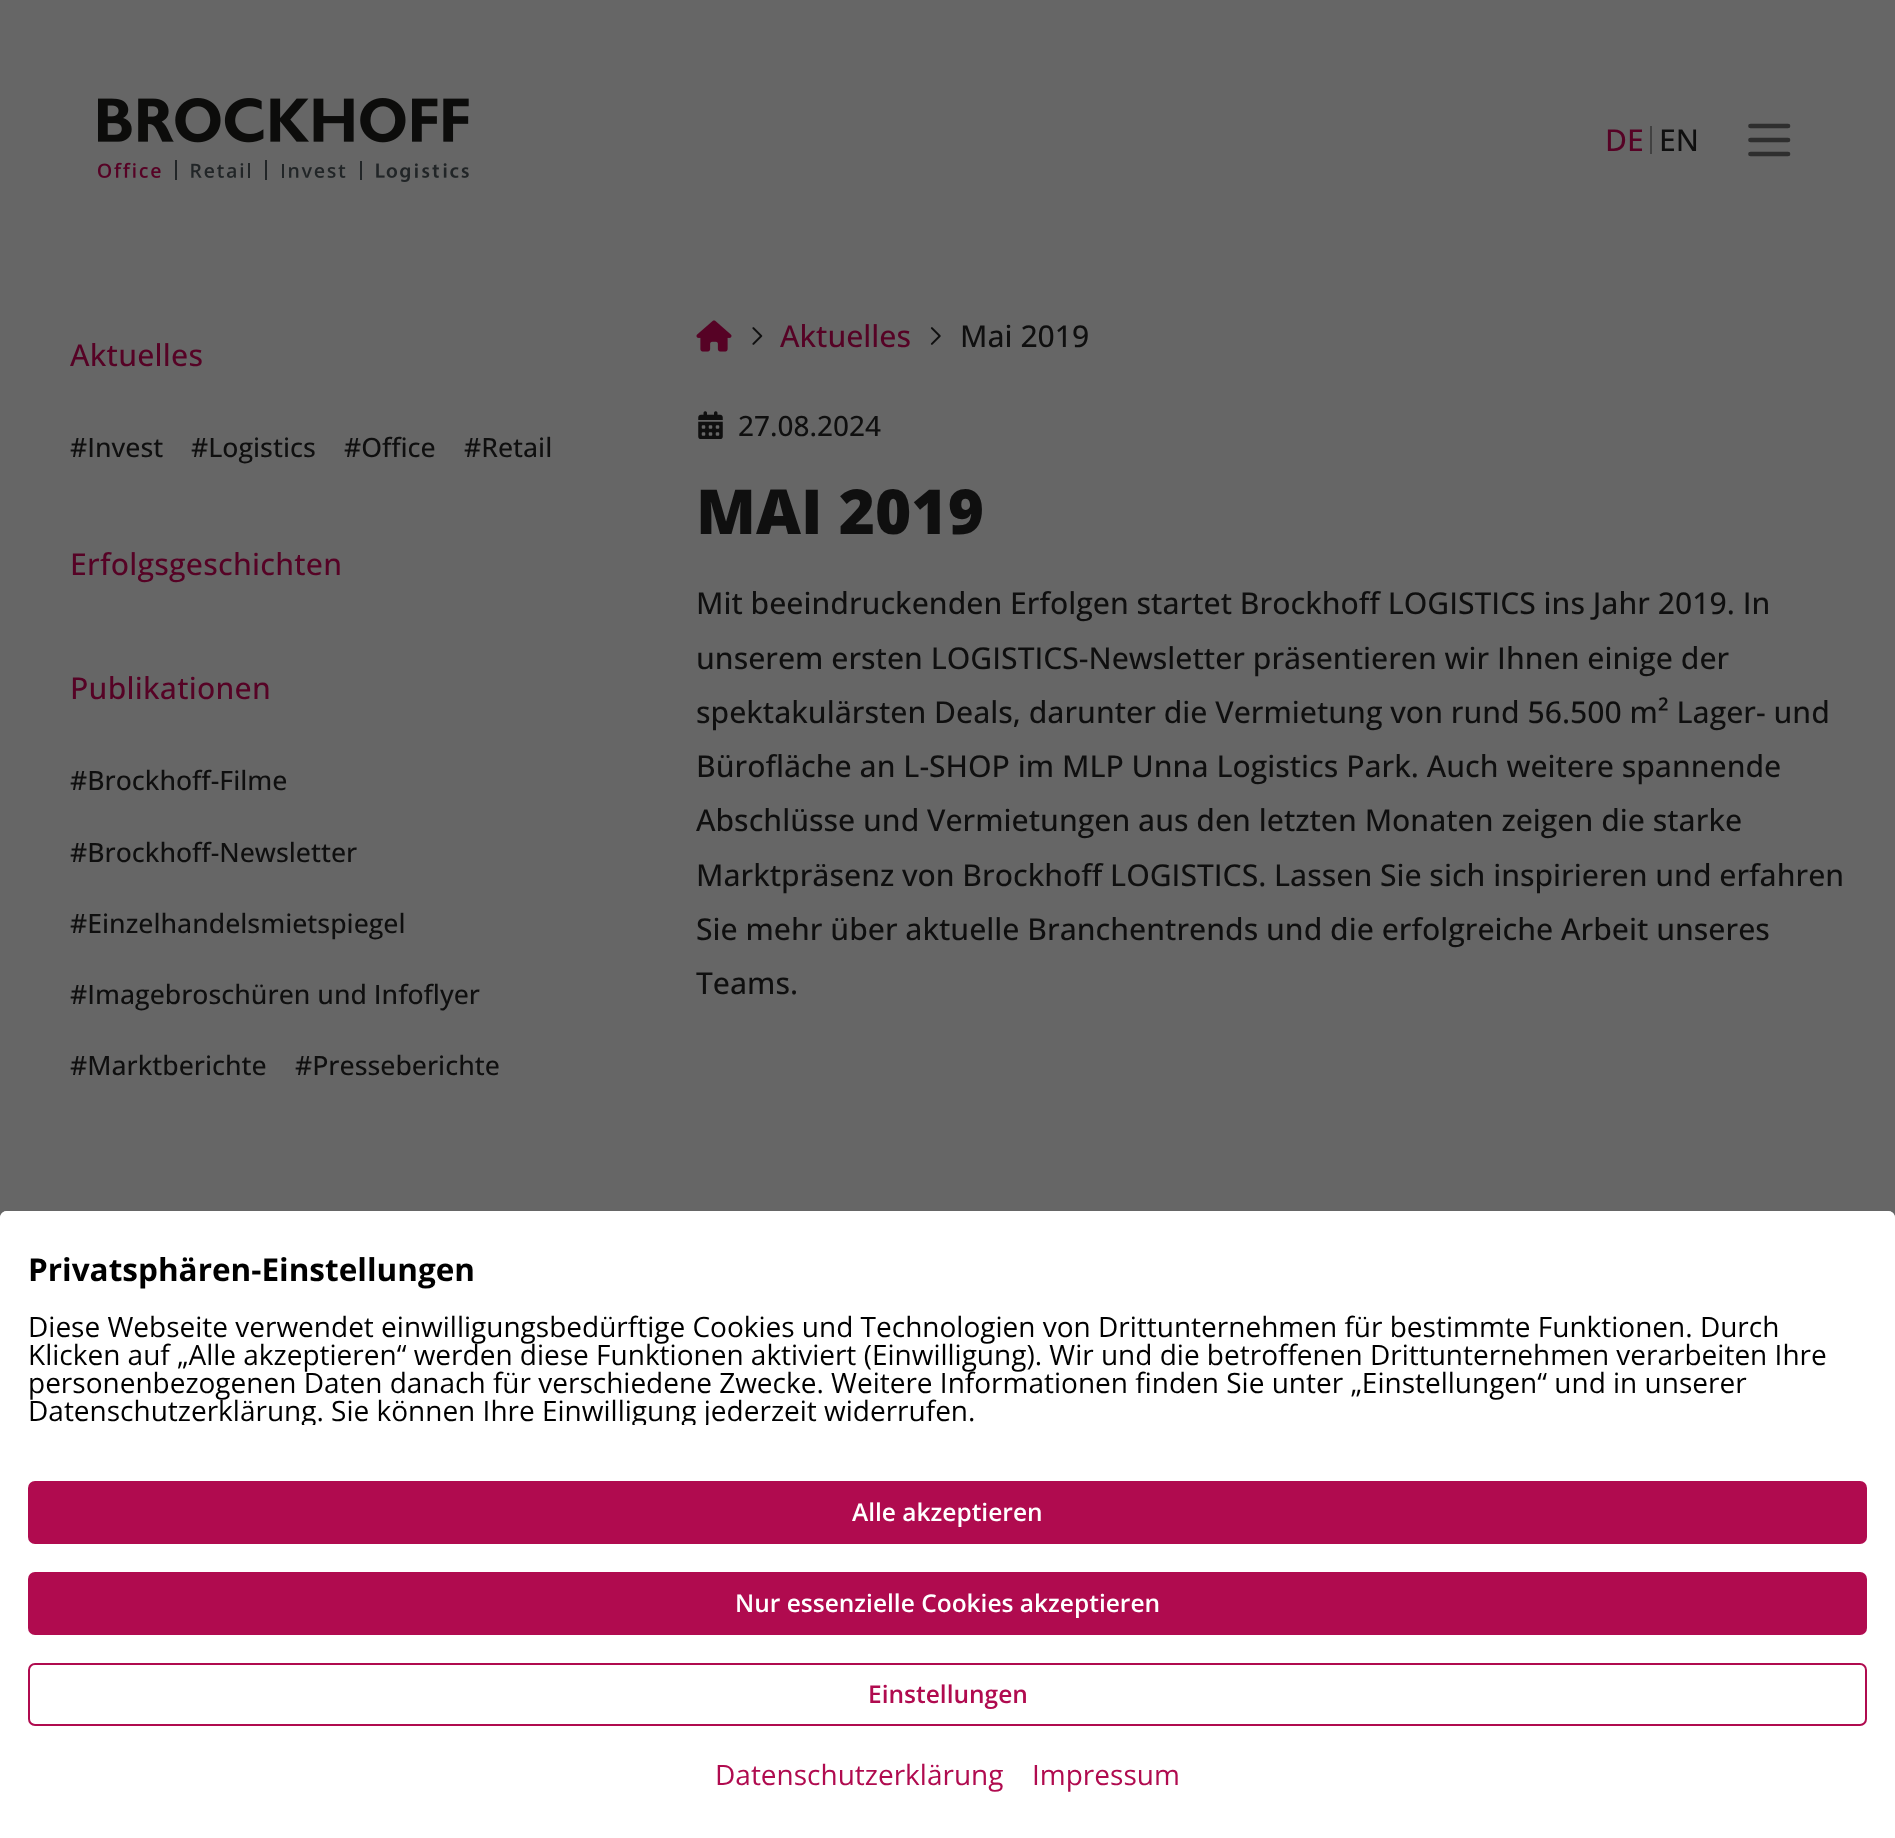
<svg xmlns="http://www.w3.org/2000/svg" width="1895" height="1838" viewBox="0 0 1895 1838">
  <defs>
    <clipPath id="clip1"><rect x="28" y="1313" width="1839" height="112"/></clipPath>
  </defs>
  <rect width="100%" height="100%" fill="rgb(102,102,102)"/>
  <image x="98" y="98" width="371" height="84" href="pic1.png"/>
  <text x="1605" y="151" font-family="Open Sans" font-size="30.15" font-weight="500" fill="rgb(86,2,37)">DE</text>
  <rect x="1650" y="126" width="2" height="28" fill="rgb(65,65,65)"/>
  <text x="1659" y="151" font-family="Open Sans" font-size="30.15" font-weight="500" fill="rgb(15,15,15)">EN</text>
  <path d="M1750.5 140H1788M1750.5 126H1788M1750.5 154H1788" fill="none" stroke="rgb(46,46,46)" stroke-width="4.7" stroke-linecap="round" stroke-linejoin="round"/>
  <text x="70" y="366" font-family="Open Sans" font-size="30.15" font-weight="500" letter-spacing="0.25" fill="rgb(86,2,37)">Aktuelles</text>
  <g font-family="Open Sans" font-size="26.6" font-weight="500" fill="rgb(15,15,15)">
    <text x="70" y="457">#Invest</text>
    <text x="191" y="457">#Logistics</text>
    <text x="344" y="457">#Office</text>
    <text x="464" y="457">#Retail</text>
  </g>
  <g font-family="Open Sans" font-size="30.15" font-weight="500" letter-spacing="0.25" fill="rgb(86,2,37)">
    <text x="70" y="575">Erfolgsgeschichten</text>
    <text x="70" y="699">Publikationen</text>
  </g>
  <g font-family="Open Sans" font-size="26.6" font-weight="500" fill="rgb(15,15,15)">
    <text x="70" y="790">#Brockhoff-Filme</text>
    <text x="70" y="862">#Brockhoff-Newsletter</text>
    <text x="70" y="933">#Einzelhandelsmietspiegel</text>
    <text x="70" y="1004">#Imagebroschüren und Infoflyer</text>
    <text x="70" y="1075">#Marktberichte</text>
    <text x="295" y="1075">#Presseberichte</text>
  </g>
  <image x="696" y="320" width="36" height="32" href="pic2.png"/>
  <image x="752" y="327" width="11" height="18" href="pic3.png"/>
  <text x="780" y="347" font-family="Open Sans" font-size="30.15" font-weight="500" fill="rgb(86,2,37)">Aktuelles</text>
  <image x="930" y="327" width="11" height="18" href="pic4.png"/>
  <text x="960" y="347" font-family="Open Sans" font-size="30.15" font-weight="500" fill="rgb(15,15,15)">Mai 2019</text>
  <image x="698" y="411" width="25" height="28" href="pic5.png"/>
  <text x="738" y="436" font-family="Open Sans" font-size="28" font-weight="500" fill="rgb(15,15,15)">27.08.2024</text>
  <text x="696" y="534" font-family="Open Sans" font-size="62" font-weight="800" fill="rgb(15,15,15)">MAI 2019</text>
  <g font-family="Open Sans" font-size="30.15" font-weight="500" fill="rgb(15,15,15)">
    <text>
      <tspan x="696" y="614">Mit beeindruckenden Erfolgen startet Brockhoff LOGISTICS ins Jahr 2019. In</tspan>
      <tspan x="696" y="669">unserem ersten LOGISTICS-Newsletter präsentieren wir Ihnen einige der</tspan>
      <tspan x="696" y="723">spektakulärsten Deals, darunter die Vermietung von rund 56.500 m² Lager- und</tspan>
      <tspan x="696" y="777">Bürofläche an L-SHOP im MLP Unna Logistics Park. Auch weitere spannende</tspan>
      <tspan x="696" y="831">Abschlüsse und Vermietungen aus den letzten Monaten zeigen die starke</tspan>
      <tspan x="696" y="886" word-spacing="-0.1">Marktpräsenz von Brockhoff LOGISTICS. Lassen Sie sich inspirieren und erfahren</tspan>
      <tspan x="696" y="940">Sie mehr über aktuelle Branchentrends und die erfolgreiche Arbeit unseres</tspan>
      <tspan x="696" y="994">Teams.</tspan>
    </text>
  </g>
  <path d="M7 1211H1888C1892 1211 1895 1214 1895 1218V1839H0V1218C0 1214 3 1211 7 1211Z" fill="rgb(255,255,255)"/>
  <rect x="0" y="1211" width="1895" height="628" rx="7" fill="rgb(255,255,255)"/>
  <text x="28" y="1281" font-family="Open Sans" font-size="31.5" font-weight="bold" fill="rgb(0,0,0)">Privatsphären-Einstellungen</text>
  <g font-family="Open Sans" font-size="28" fill="rgb(0,0,0)">
    <text>
      <tspan x="28" y="1337">Diese Webseite verwendet einwilligungsbedürftige Cookies und Technologien von Drittunternehmen für bestimmte Funktionen. Durch</tspan>
      <tspan x="28" y="1365">Klicken auf „Alle akzeptieren“ werden diese Funktionen aktiviert (Einwilligung). Wir und die betroffenen Drittunternehmen verarbeiten Ihre</tspan>
      <tspan x="28" y="1393">personenbezogenen Daten danach für verschiedene Zwecke. Weitere Informationen finden Sie unter „Einstellungen“ und in unserer</tspan>
    </text>
  </g>
  <g clip-path="url(#clip1)">
    <text x="28" y="1421" font-family="Open Sans" font-size="28" fill="rgb(0,0,0)">Datenschutzerklärung. Sie können Ihre Einwilligung jederzeit widerrufen.</text>
  </g>
  <rect x="28" y="1481" width="1839" height="63" rx="7" fill="rgb(176,11,79)"/>
  <text x="852" y="1521" font-family="Open Sans" font-size="24.5" font-weight="600" fill="rgb(255,255,255)">Alle akzeptieren</text>
  <rect x="28" y="1572" width="1839" height="63" rx="7" fill="rgb(176,11,79)"/>
  <text x="735" y="1612" font-family="Open Sans" font-size="24.5" font-weight="600" fill="rgb(255,255,255)">Nur essenzielle Cookies akzeptieren</text>
  <rect x="29" y="1664" width="1837" height="61" rx="6" fill="none" stroke="rgb(176,11,79)" stroke-width="2"/>
  <text x="868" y="1703" font-family="Open Sans" font-size="24.5" font-weight="600" fill="rgb(176,11,79)">Einstellungen</text>
  <g font-family="Open Sans" font-size="28" fill="rgb(176,11,79)">
    <text x="715" y="1785">Datenschutzerklärung</text>
    <text x="1032" y="1785">Impressum</text>
  </g>
</svg>
